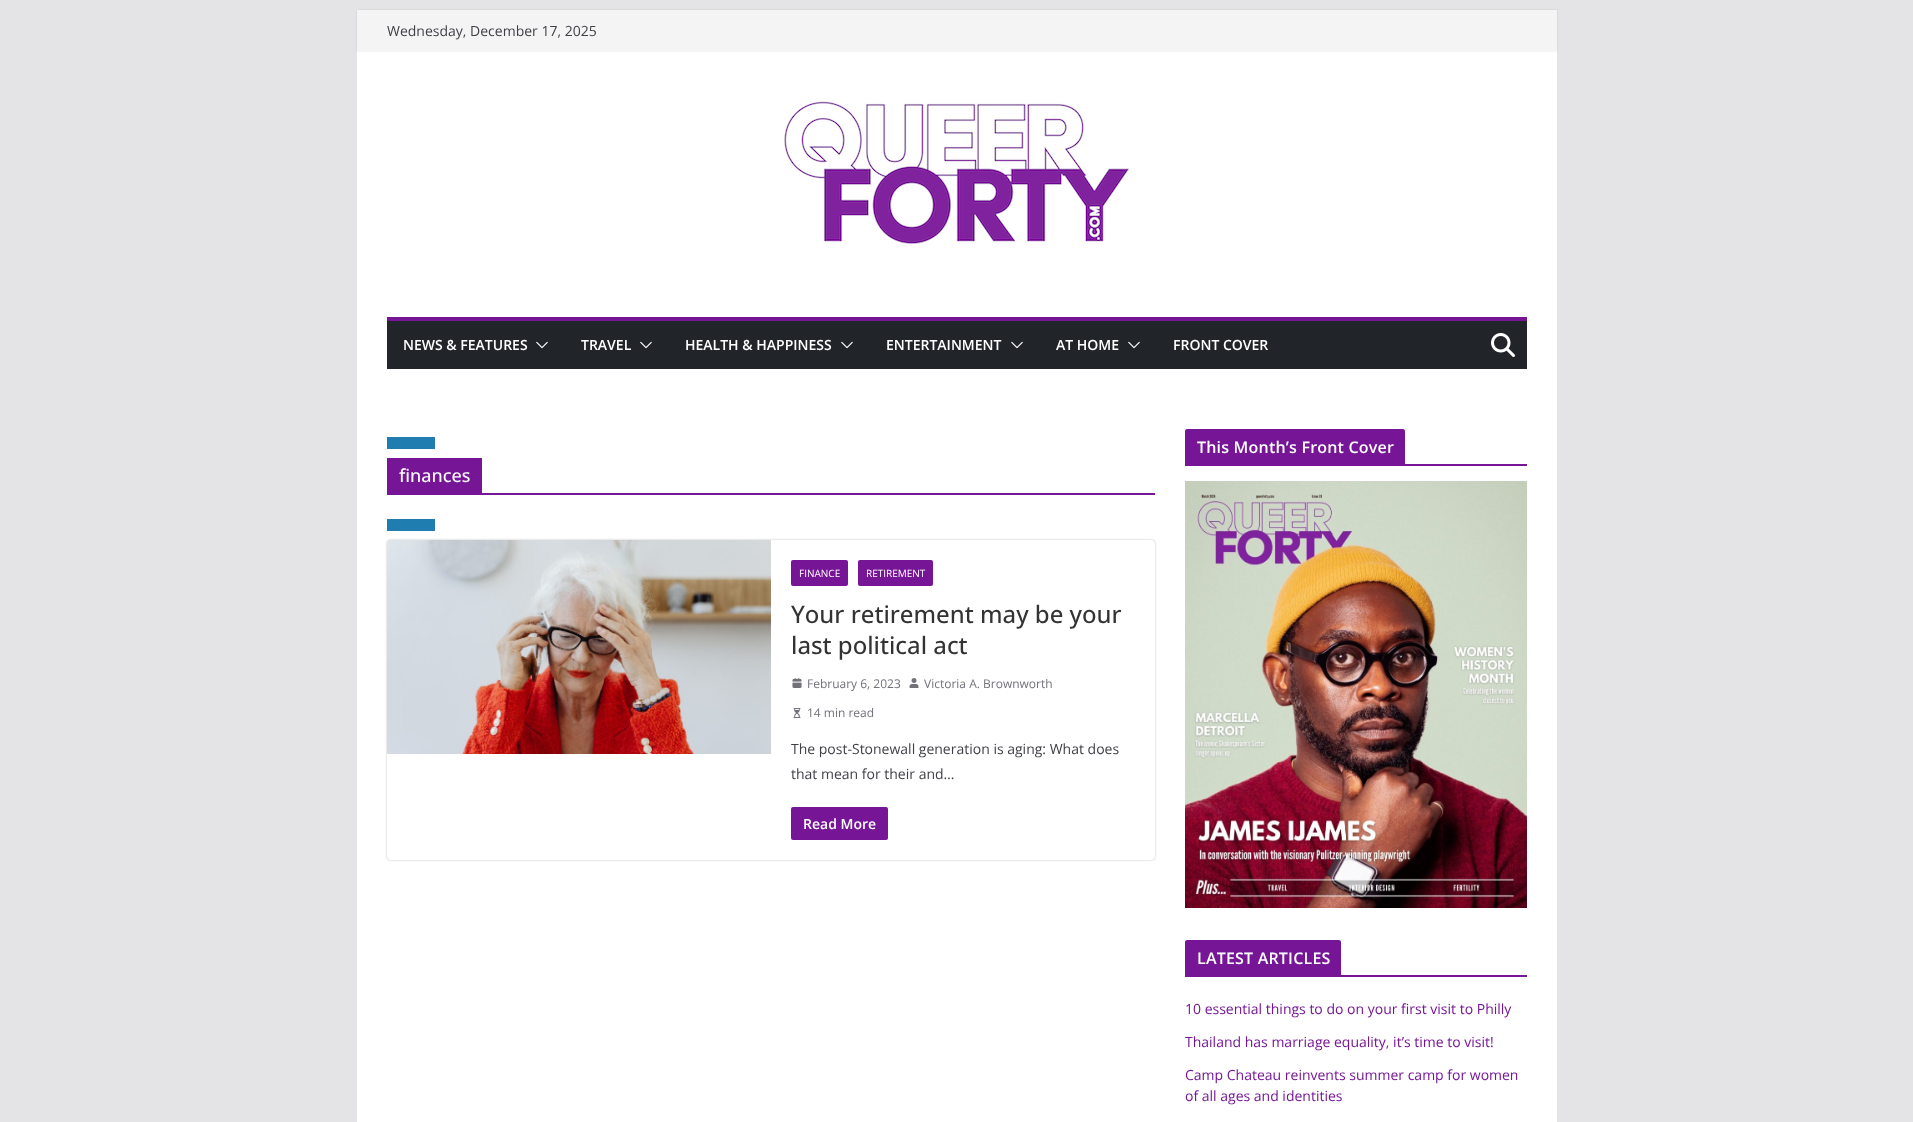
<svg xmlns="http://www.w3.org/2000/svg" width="1913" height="1122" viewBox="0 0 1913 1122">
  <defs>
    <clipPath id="clip1"><path d="M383 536H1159V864H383ZM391 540H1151C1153 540 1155 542 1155 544V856C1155 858 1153 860 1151 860H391C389 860 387 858 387 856V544C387 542 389 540 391 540Z" clip-rule="evenodd"/></clipPath>
  </defs>
  <rect width="100%" height="100%" fill="rgb(228,228,231)"/>
  <rect x="357" y="51" width="1200" height="1071" fill="rgb(255,255,255)"/>
  <rect x="357" y="10" width="1200" height="41" fill="rgba(0,0,0,0.1)" filter="blur(1px)"/>
  <rect x="357" y="10" width="1200" height="41" fill="rgb(244,244,245)"/>
  <text x="387" y="36" font-family="Open Sans" font-size="14" fill="rgb(63,63,70)">Wednesday, December 17, 2025</text>
  <image x="784" y="101" width="345" height="143" href="pic1.png"/>
  <rect x="387" y="321" width="1140" height="48" fill="rgb(33,37,41)"/>
  <rect x="387" y="317" width="1140" height="4" fill="rgb(118,22,150)"/>
  <text x="403" y="350" font-family="Open Sans" font-size="14" font-weight="600" fill="rgb(255,255,255)">NEWS &amp; FEATURES</text>
  <image x="536" y="341" width="12" height="8" href="pic2.png"/>
  <text x="581" y="350" font-family="Open Sans" font-size="14" font-weight="600" fill="rgb(255,255,255)">TRAVEL</text>
  <image x="640" y="341" width="12" height="8" href="pic2.png"/>
  <text x="685" y="350" font-family="Open Sans" font-size="14" font-weight="600" fill="rgb(255,255,255)">HEALTH &amp; HAPPINESS</text>
  <image x="841" y="341" width="12" height="8" href="pic2.png"/>
  <text x="886" y="350" font-family="Open Sans" font-size="14" font-weight="600" fill="rgb(255,255,255)">ENTERTAINMENT</text>
  <image x="1011" y="341" width="12" height="8" href="pic2.png"/>
  <text x="1056" y="350" font-family="Open Sans" font-size="14" font-weight="600" fill="rgb(255,255,255)">AT HOME</text>
  <image x="1128" y="341" width="12" height="8" href="pic2.png"/>
  <text x="1173" y="350" font-family="Open Sans" font-size="14" font-weight="600" fill="rgb(255,255,255)">FRONT COVER</text>
  <image x="1491" y="333" width="24" height="24" href="pic3.png"/>
  <rect x="387" y="437" width="48" height="12" fill="rgb(32,125,175)"/>
  <rect x="387" y="493" width="768" height="2" fill="rgb(118,22,150)"/>
  <rect x="387" y="458" width="95" height="35" fill="rgb(118,22,150)"/>
  <text x="399" y="482" font-family="Open Sans" font-size="18" font-weight="500" fill="rgb(255,255,255)">finances</text>
  <rect x="387" y="519" width="48" height="12" fill="rgb(32,125,175)"/>
  <g clip-path="url(#clip1)">
    <rect x="387" y="540" width="768" height="320" rx="4" fill="rgba(0,0,0,0.24)" filter="blur(1px)"/>
  </g>
  <image x="387" y="540" width="384" height="214" href="pic4.png"/>
  <rect x="791" y="560" width="57" height="26" rx="2" fill="rgb(118,22,150)"/>
  <text x="799" y="577" font-family="Open Sans" font-size="10" fill="rgb(255,255,255)">FINANCE</text>
  <rect x="858" y="560" width="75" height="26" rx="2" fill="rgb(118,22,150)"/>
  <text x="866" y="577" font-family="Open Sans" font-size="10" fill="rgb(255,255,255)">RETIREMENT</text>
  <g font-family="Open Sans" font-size="24" font-weight="500" fill="rgb(51,51,51)">
    <text>
      <tspan x="791" y="623">Your retirement may be your</tspan>
      <tspan x="791" y="654">last political act</tspan>
    </text>
  </g>
  <image x="792" y="678" width="10" height="10" href="pic5.png"/>
  <text x="807" y="688" font-family="Open Sans" font-size="12" fill="rgb(113,113,122)">February 6, 2023</text>
  <image x="909" y="678" width="10" height="10" href="pic6.png"/>
  <text x="924" y="688" font-family="Open Sans" font-size="12" fill="rgb(113,113,122)">Victoria A. Brownworth</text>
  <image x="793" y="708" width="8" height="10" href="pic7.png"/>
  <text x="807" y="717" font-family="Open Sans" font-size="12" fill="rgb(113,113,122)">14 min read</text>
  <g font-family="Open Sans" font-size="14" fill="rgb(63,63,70)">
    <text>
      <tspan x="791" y="754">The post-Stonewall generation is aging: What does</tspan>
      <tspan x="791" y="779">that mean for their and…</tspan>
    </text>
  </g>
  <rect x="791" y="807" width="97" height="33" rx="2" fill="rgb(118,22,150)"/>
  <text x="803" y="829" font-family="Open Sans" font-size="14" font-weight="600" fill="rgb(255,255,255)">Read More</text>
  <rect x="1185" y="464" width="342" height="2" fill="rgb(118,22,150)"/>
  <path d="M1187 429H1403C1404 429 1405 430 1405 431V464H1185V431C1185 430 1186 429 1187 429Z" fill="rgb(118,22,150)"/>
  <text x="1197" y="453" font-family="Open Sans" font-size="16" font-weight="600" letter-spacing="0.2" fill="rgb(255,255,255)">This Month’s Front Cover</text>
  <image x="1185" y="481" width="342" height="427" href="pic8.png"/>
  <rect x="1185" y="975" width="342" height="2" fill="rgb(118,22,150)"/>
  <path d="M1187 940H1339C1340 940 1341 941 1341 942V975H1185V942C1185 941 1186 940 1187 940Z" fill="rgb(118,22,150)"/>
  <text x="1197" y="964" font-family="Open Sans" font-size="16" font-weight="600" letter-spacing="0.2" fill="rgb(255,255,255)">LATEST ARTICLES</text>
  <g font-family="Open Sans" font-size="14" fill="rgb(118,22,150)">
    <text x="1185" y="1014">10 essential things to do on your first visit to Philly</text>
    <text x="1185" y="1047">Thailand has marriage equality, it’s time to visit!</text>
    <text>
      <tspan x="1185" y="1080">Camp Chateau reinvents summer camp for women</tspan>
      <tspan x="1185" y="1101">of all ages and identities</tspan>
    </text>
  </g>
</svg>
